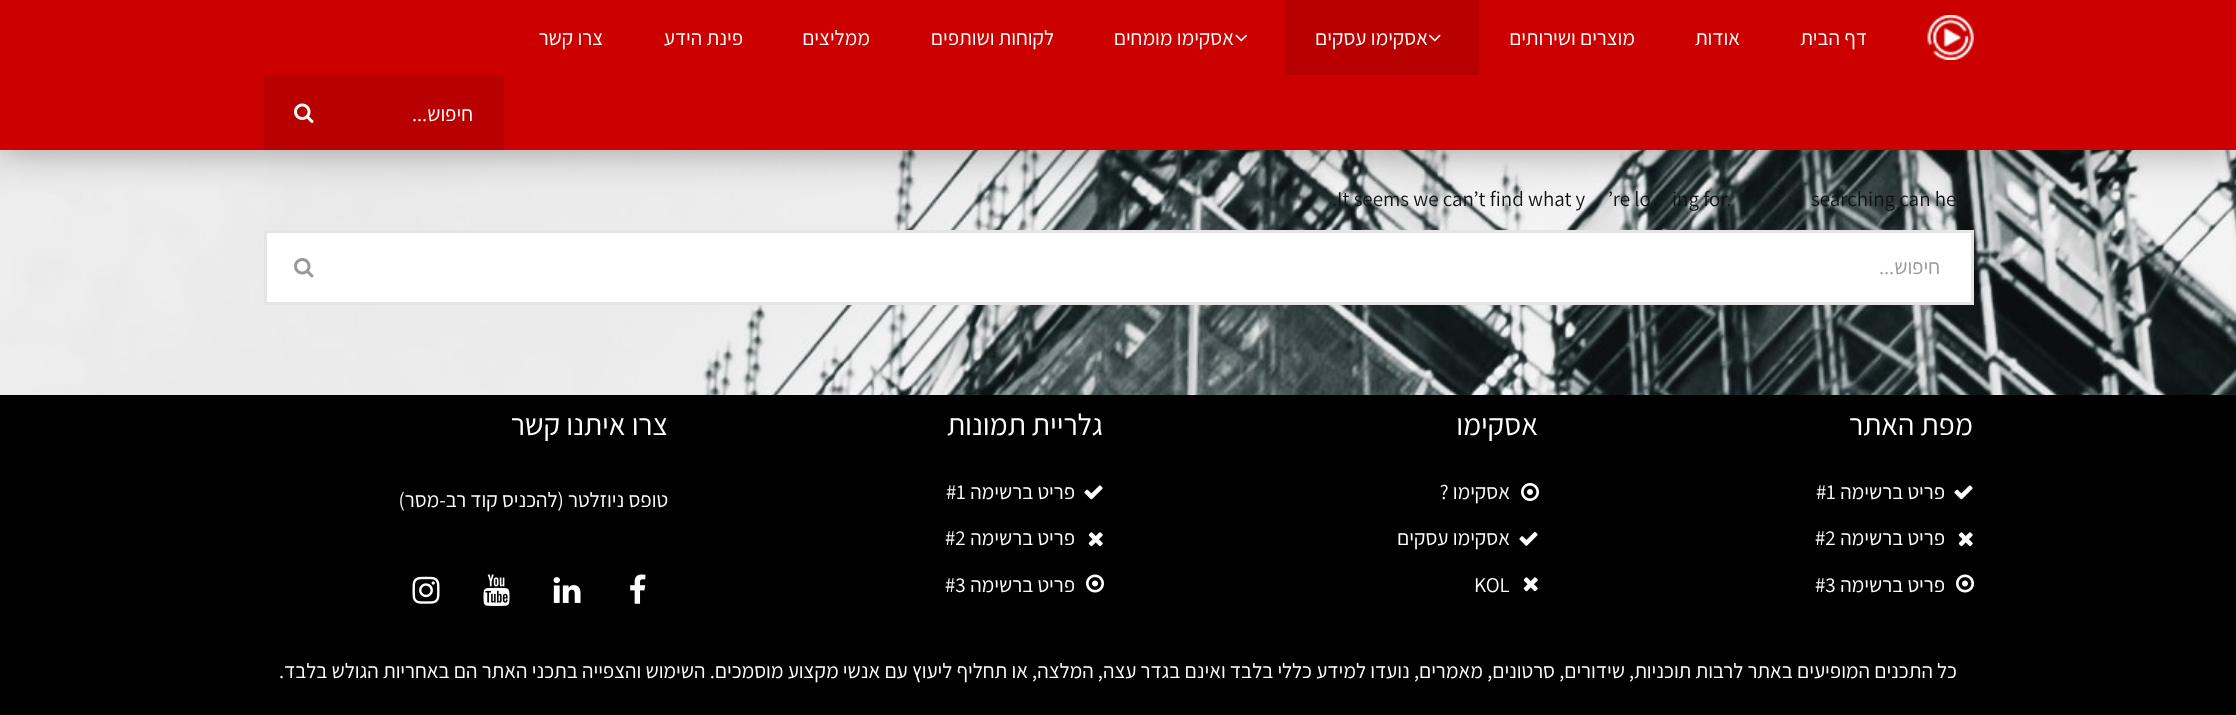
<svg xmlns="http://www.w3.org/2000/svg" width="2236" height="715" viewBox="0 0 2236 715">
  <rect width="100%" height="100%" fill="rgb(255,255,255)"/>
  <image x="0" y="150" width="2236" height="245" href="pic1.png"/>
  <rect x="0" y="0" width="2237" height="150" fill="rgba(0,0,0,0.35)" filter="blur(19px)"/>
  <rect x="0" y="0" width="2236" height="150" fill="rgb(204,0,0)"/>
  <image x="1927" y="15" width="47" height="45" href="pic2.png"/>
  <g font-family="Assistant" font-size="21" font-weight="200" direction="rtl" fill="rgb(255,255,255)">
    <text x="1867" y="45">דף הבית</text>
    <text x="1740" y="45">אודות</text>
    <text x="1635" y="45">מוצרים ושירותים</text>
  </g>
  <rect x="1286" y="0" width="193" height="75" fill="rgb(184,0,0)"/>
  <image x="1428" y="34" width="13" height="8" href="pic3.png"/>
  <text x="1428" y="45" font-family="Assistant" font-size="21" font-weight="200" direction="rtl" fill="rgb(255,255,255)">אסקימו עסקים</text>
  <image x="1235" y="34" width="13" height="8" href="pic4.png"/>
  <g font-family="Assistant" font-size="21" font-weight="200" direction="rtl" fill="rgb(255,255,255)">
    <text x="1234" y="45">אסקימו מומחים</text>
    <text x="1054" y="45">לקוחות ושותפים</text>
    <text x="870" y="45">ממליצים</text>
    <text x="743" y="45">פינת הידע</text>
    <text x="603" y="45">צרו קשר</text>
  </g>
  <rect x="264" y="75" width="240" height="75" fill="rgb(184,0,0)"/>
  <text x="473" y="121" font-family="Assistant" font-size="21" font-weight="200" direction="rtl" fill="rgb(255,255,255)">חיפוש...</text>
  <image x="294" y="103" width="20" height="20" href="pic5.png"/>
  <g font-family="Assistant" font-size="21" font-weight="200" fill="rgb(17,17,17)">
    <text x="1811" y="206">searching can he</text>
    <text x="1672" y="206">ing for.</text>
    <text x="1608" y="206">’re lo</text>
    <text x="1332" y="206">.It seems we can’t find what y</text>
  </g>
  <rect x="265.5" y="231.5" width="1707" height="72" fill="rgb(255,255,255)" stroke="rgb(229,229,229)" stroke-width="3"/>
  <text x="1940" y="274" font-family="Assistant" font-size="21" font-weight="200" direction="rtl" fill="rgb(153,153,153)">חיפוש...</text>
  <image x="294" y="258" width="20" height="20" href="pic6.png"/>
  <rect x="0" y="395" width="2236" height="310" fill="rgb(0,0,0)"/>
  <text x="1973" y="435" font-family="Assistant" font-size="30" font-weight="200" direction="rtl" fill="rgb(255,255,255)">מפת האתר</text>
  <image x="1954" y="485" width="19" height="15" href="pic7.png"/>
  <text x="1945" y="499" font-family="Assistant" font-size="21" font-weight="200" direction="rtl" fill="rgb(255,255,255)">פריט ברשימה</text>
  <text x="1816" y="499" font-family="Assistant" font-size="21" font-weight="200" fill="rgb(255,255,255)">#1</text>
  <image x="1958" y="532" width="15" height="15" href="pic8.png"/>
  <text x="1945" y="545" font-family="Assistant" font-size="21" font-weight="200" direction="rtl" fill="rgb(255,255,255)">פריט ברשימה</text>
  <text x="1815" y="545" font-family="Assistant" font-size="21" font-weight="200" fill="rgb(255,255,255)">#2</text>
  <image x="1956" y="574" width="18" height="19" href="pic9.png"/>
  <text x="1945" y="592" font-family="Assistant" font-size="21" font-weight="200" direction="rtl" fill="rgb(255,255,255)">פריט ברשימה</text>
  <text x="1815" y="592" font-family="Assistant" font-size="21" font-weight="200" fill="rgb(255,255,255)">#3</text>
  <text x="1538" y="435" font-family="Assistant" font-size="30" font-weight="200" direction="rtl" fill="rgb(255,255,255)">אסקימו</text>
  <image x="1521" y="483" width="18" height="18" href="pic10.png"/>
  <text x="1510" y="499" font-family="Assistant" font-size="21" font-weight="200" direction="rtl" fill="rgb(255,255,255)">אסקימו ?</text>
  <image x="1519" y="531" width="19" height="15" href="pic11.png"/>
  <text x="1510" y="545" font-family="Assistant" font-size="21" font-weight="200" direction="rtl" fill="rgb(255,255,255)">אסקימו עסקים</text>
  <image x="1523" y="577" width="15" height="15" href="pic8.png"/>
  <text x="1474" y="592" font-family="Assistant" font-size="21" font-weight="200" fill="rgb(255,255,255)">KOL</text>
  <text x="1103" y="435" font-family="Assistant" font-size="30" font-weight="200" direction="rtl" fill="rgb(255,255,255)">גלריית תמונות</text>
  <image x="1084" y="485" width="19" height="15" href="pic7.png"/>
  <text x="1075" y="499" font-family="Assistant" font-size="21" font-weight="200" direction="rtl" fill="rgb(255,255,255)">פריט ברשימה</text>
  <text x="946" y="499" font-family="Assistant" font-size="21" font-weight="200" fill="rgb(255,255,255)">#1</text>
  <image x="1088" y="532" width="15" height="15" href="pic8.png"/>
  <text x="1075" y="545" font-family="Assistant" font-size="21" font-weight="200" direction="rtl" fill="rgb(255,255,255)">פריט ברשימה</text>
  <text x="945" y="545" font-family="Assistant" font-size="21" font-weight="200" fill="rgb(255,255,255)">#2</text>
  <image x="1086" y="574" width="18" height="19" href="pic9.png"/>
  <text x="1075" y="592" font-family="Assistant" font-size="21" font-weight="200" direction="rtl" fill="rgb(255,255,255)">פריט ברשימה</text>
  <text x="945" y="592" font-family="Assistant" font-size="21" font-weight="200" fill="rgb(255,255,255)">#3</text>
  <text x="668" y="435" font-family="Assistant" font-size="30" font-weight="200" direction="rtl" fill="rgb(255,255,255)">צרו איתנו קשר</text>
  <text x="668" y="507" font-family="Assistant" font-size="21" font-weight="200" direction="rtl" fill="rgb(255,255,255)">טופס ניוזלטר (להכניס קוד רב-מסר)</text>
  <image x="630" y="574" width="16" height="30" href="pic12.png"/>
  <image x="553" y="577" width="28" height="26" href="pic13.png"/>
  <image x="483" y="574" width="27" height="32" href="pic14.png"/>
  <image x="412" y="576" width="28" height="28" href="pic15.png"/>
  <text x="1957" y="678" font-family="Assistant" font-size="21" font-weight="200" direction="rtl" fill="rgb(255,255,255)">כל התכנים המופיעים באתר לרבות תוכניות, שידורים, סרטונים, מאמרים, נועדו למידע כללי בלבד ואינם בגדר עצה, המלצה, או תחליף ליעוץ עם אנשי מקצוע מוסמכים. השימוש והצפייה בתכני האתר הם באחריות הגולש בלבד.</text>
  <rect x="0" y="705" width="2236" height="10" fill="rgb(0,0,0)"/>
</svg>
